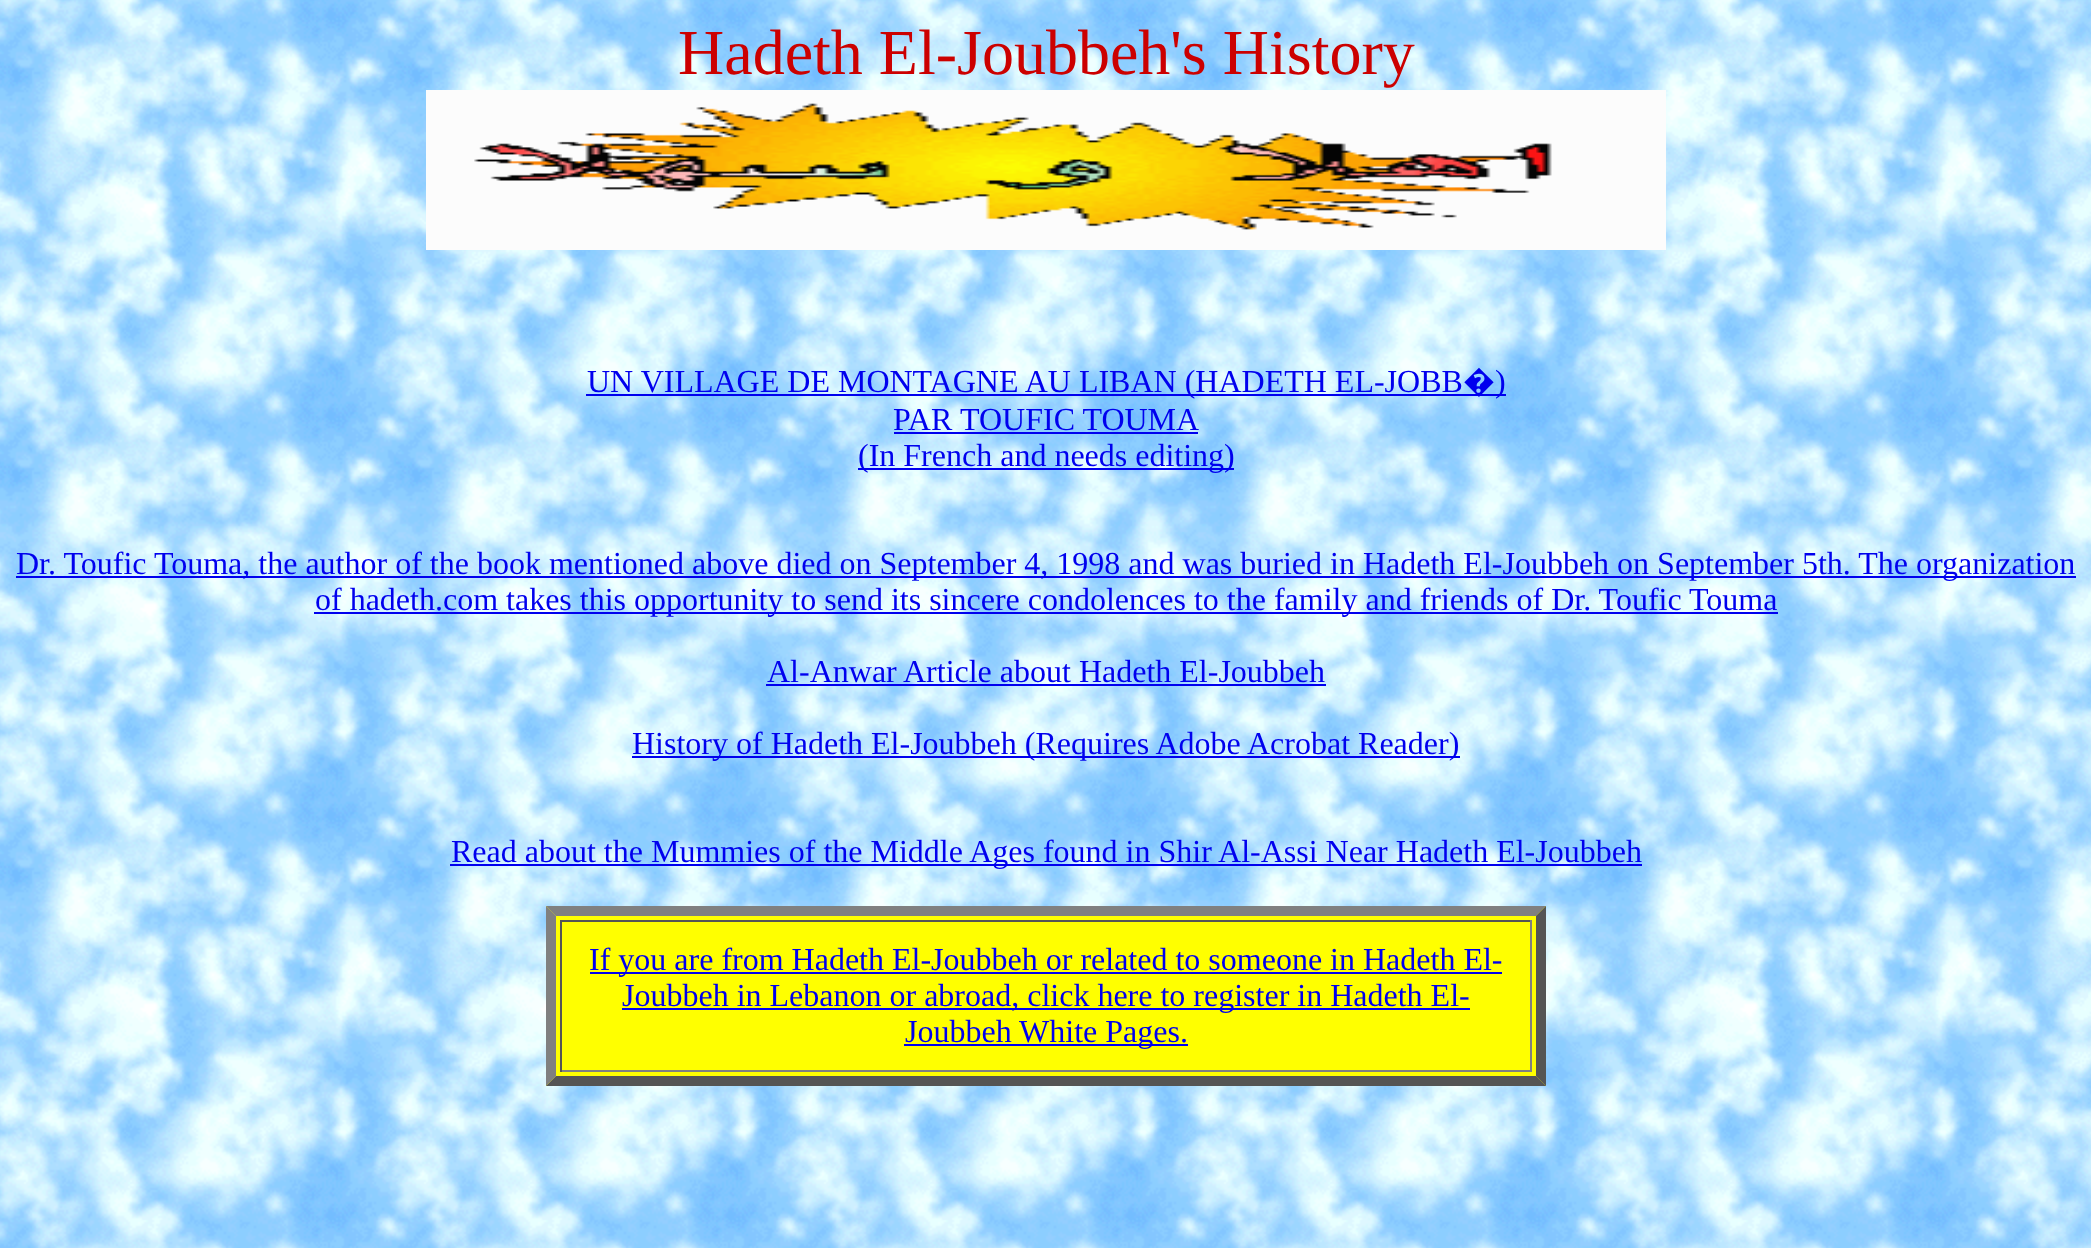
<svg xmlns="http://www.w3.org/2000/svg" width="2091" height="1248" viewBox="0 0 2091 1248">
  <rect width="100%" height="100%" fill="rgb(255,255,255)"/>
  <image x="0" y="0" width="2091" height="1248" href="pic1.png"/>
  <text x="678" y="74" font-family="Liberation Serif" font-size="64" fill="rgb(204,0,0)">Hadeth El-Joubbeh's History</text>
  <image x="426" y="90" width="1240" height="160" href="pic2.png"/>
  <rect x="586" y="394" width="920" height="2" fill="rgb(0,0,238)"/>
  <text x="587" y="392" font-family="Liberation Serif" font-size="32" fill="rgb(0,0,238)">UN VILLAGE DE MONTAGNE AU LIBAN (HADETH EL-JOBB</text>
  <text x="1463" y="392" font-family="Noto Sans" font-size="32" fill="rgb(0,0,238)">�</text>
  <g font-family="Liberation Serif" font-size="32" fill="rgb(0,0,238)">
    <text x="1495" y="392">)</text>
    <text x="893" y="430">PAR</text>
    <text x="960" y="430">TOUFIC TOUMA</text>
  </g>
  <rect x="894" y="432" width="304" height="2" fill="rgb(0,0,238)"/>
  <rect x="858" y="468" width="376" height="2" fill="rgb(0,0,238)"/>
  <text x="858" y="466" font-family="Liberation Serif" font-size="32" fill="rgb(0,0,238)">(In French and needs editing)</text>
  <rect x="16" y="576" width="2060" height="2" fill="rgb(0,0,238)"/>
  <text x="16" y="574" font-family="Liberation Serif" font-size="32" fill="rgb(0,0,238)">Dr. Toufic Touma, the author of the book mentioned above died on September 4, 1998 and was buried in Hadeth El-Joubbeh on September 5th. The organization</text>
  <rect x="314" y="612" width="1464" height="2" fill="rgb(0,0,238)"/>
  <g font-family="Liberation Serif" font-size="32" fill="rgb(0,0,238)">
    <text x="315" y="610">of hadeth.com takes this opportunity to send its sincere condolences to the family and friends of Dr. Toufic Touma</text>
    <text x="767" y="682">Al-Anwar Article about Hadeth El-Joubbeh</text>
  </g>
  <rect x="766" y="684" width="560" height="2" fill="rgb(0,0,238)"/>
  <rect x="632" y="756" width="828" height="2" fill="rgb(0,0,238)"/>
  <text x="632" y="754" font-family="Liberation Serif" font-size="32" fill="rgb(0,0,238)">History of Hadeth El-Joubbeh (Requires Adobe Acrobat Reader)</text>
  <rect x="450" y="864" width="1192" height="2" fill="rgb(0,0,238)"/>
  <text x="451" y="862" font-family="Liberation Serif" font-size="32" fill="rgb(0,0,238)">Read about the Mummies of the Middle Ages found in Shir Al-Assi Near Hadeth El-Joubbeh</text>
  <rect x="546" y="906" width="1000" height="180" fill="rgb(255,255,0)"/>
  <path d="M546 906H1546L1536 916H556Z" fill="rgb(128,128,128)"/>
  <path d="M1546 906V1086L1536 1076V916Z" fill="rgb(85,85,85)"/>
  <path d="M1546 1086H546L556 1076H1536Z" fill="rgb(85,85,85)"/>
  <path d="M546 1086V906L556 916V1076Z" fill="rgb(128,128,128)"/>
  <rect x="560" y="920" width="972" height="2" fill="rgb(85,85,85)"/>
  <rect x="1530" y="920" width="2" height="152" fill="rgb(128,128,128)"/>
  <rect x="560" y="1070" width="972" height="2" fill="rgb(128,128,128)"/>
  <rect x="560" y="920" width="2" height="152" fill="rgb(85,85,85)"/>
  <rect x="590" y="972" width="912" height="2" fill="rgb(0,0,238)"/>
  <text x="589" y="970" font-family="Liberation Serif" font-size="32" fill="rgb(0,0,238)">If you are from Hadeth El-Joubbeh or related to someone in Hadeth El-</text>
  <rect x="622" y="1008" width="848" height="2" fill="rgb(0,0,238)"/>
  <text x="622" y="1006" font-family="Liberation Serif" font-size="32" fill="rgb(0,0,238)">Joubbeh in Lebanon or abroad, click here to register in Hadeth El-</text>
  <rect x="904" y="1044" width="284" height="2" fill="rgb(0,0,238)"/>
  <text x="905" y="1042" font-family="Liberation Serif" font-size="32" fill="rgb(0,0,238)">Joubbeh White Pages.</text>
</svg>
